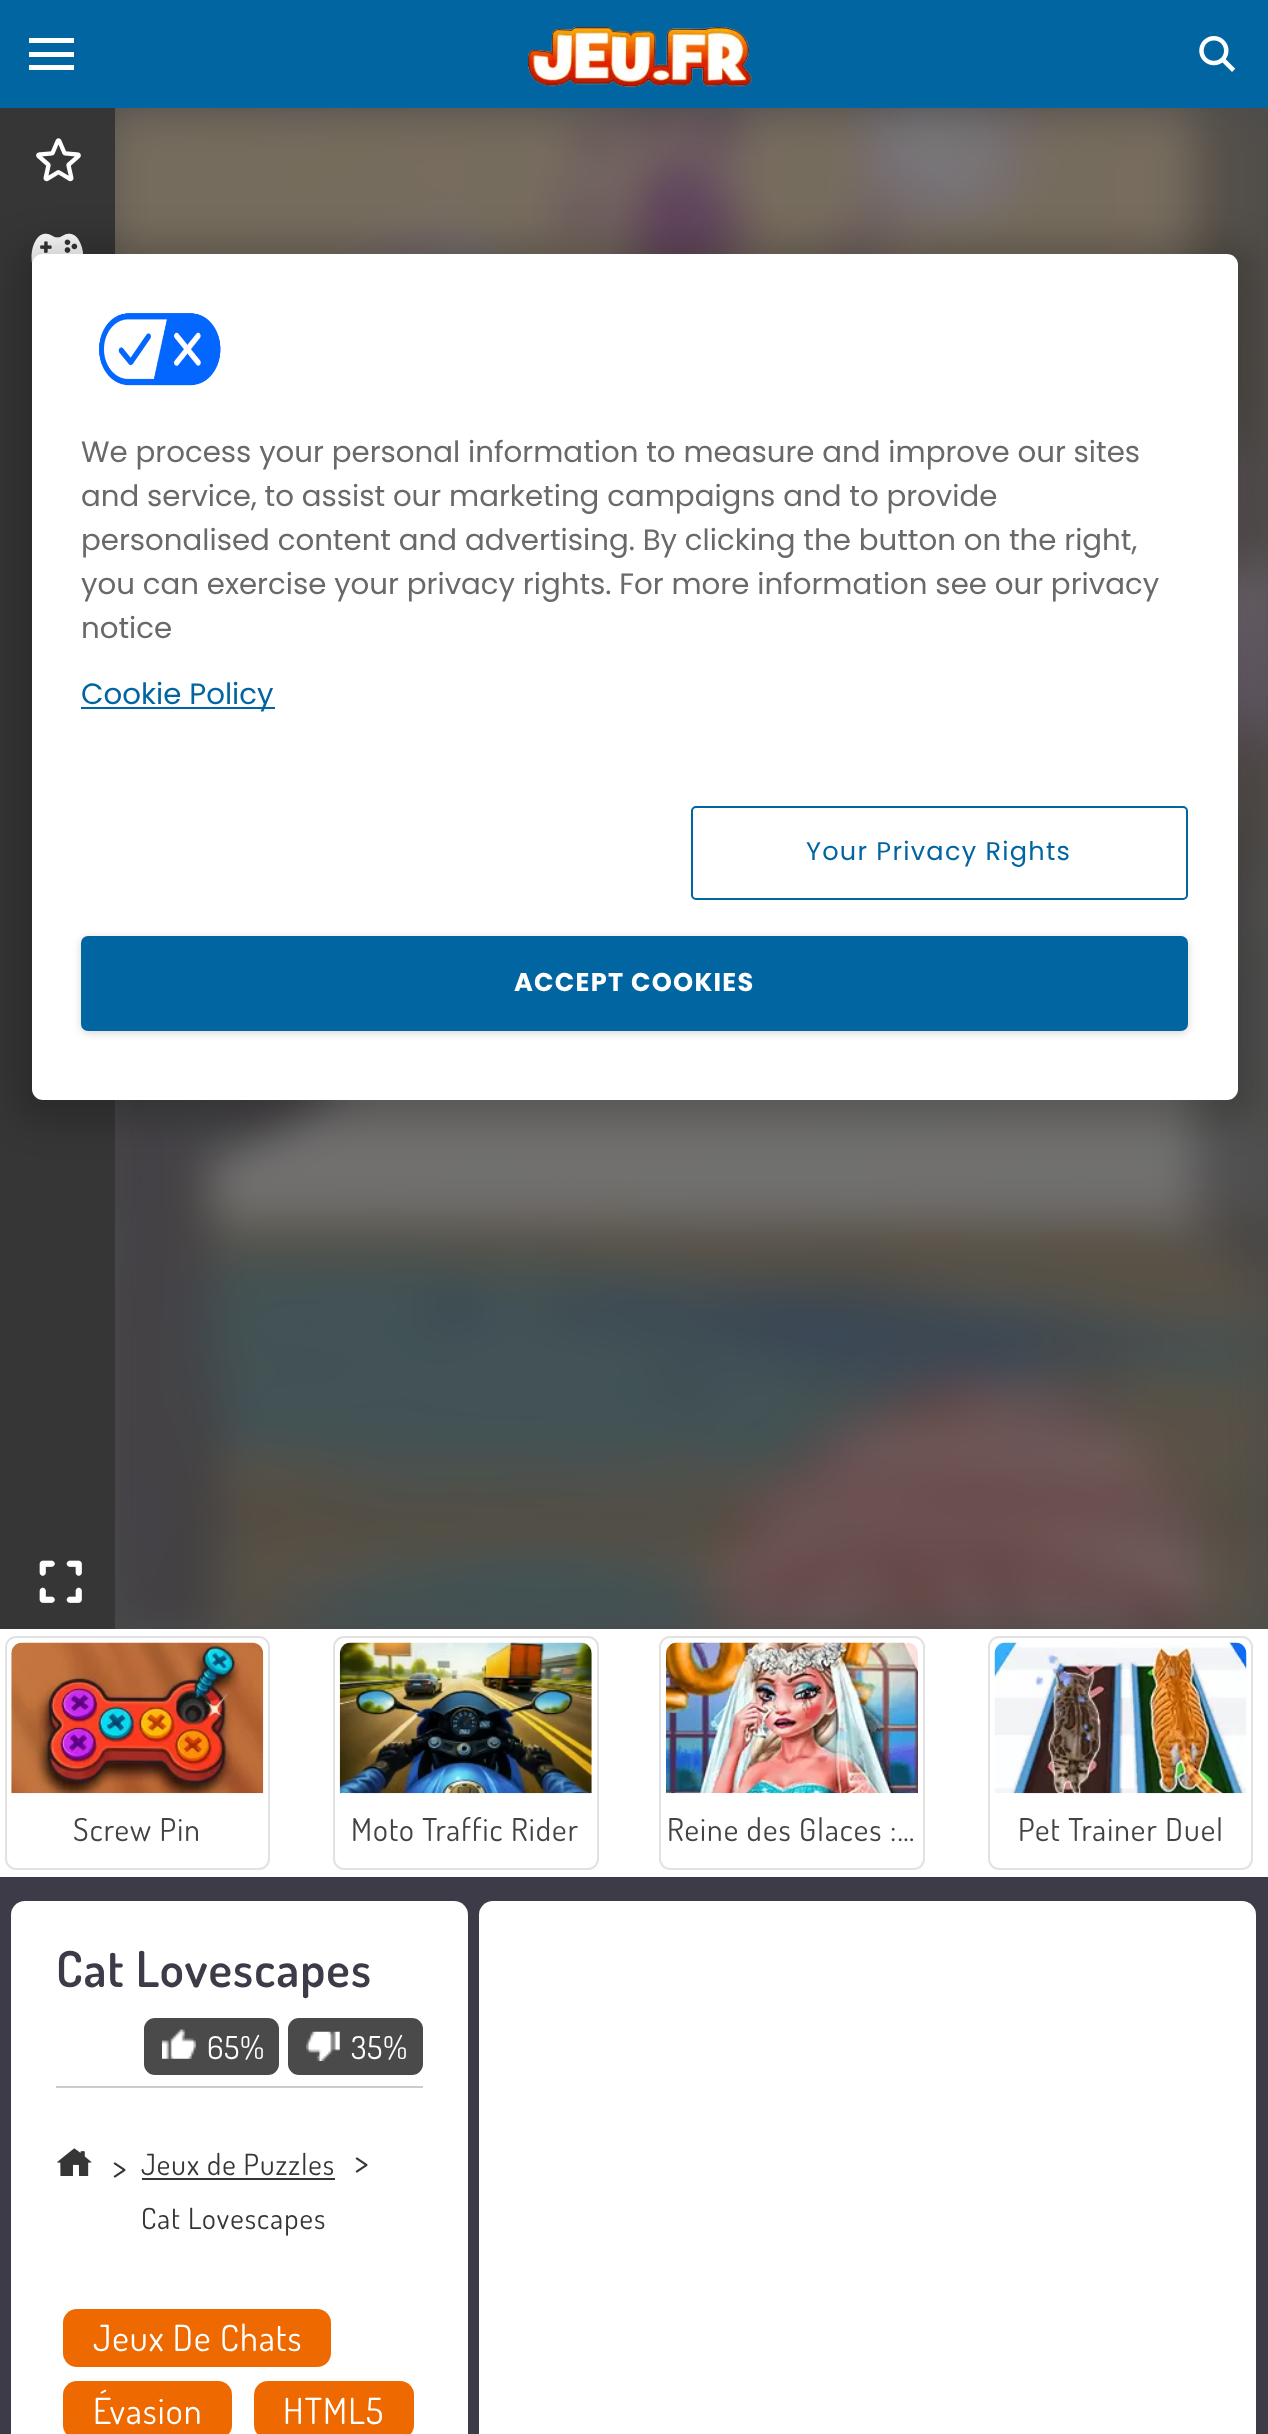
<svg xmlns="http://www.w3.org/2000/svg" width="1268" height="2434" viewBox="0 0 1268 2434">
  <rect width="100%" height="100%" fill="rgb(60,59,71)"/>
  <rect x="0" y="108" width="115" height="1521" fill="rgb(54,54,54)"/>
  <image x="31" y="233" width="53" height="32" href="pic5.png"/>
  <rect x="115" y="108" width="1153" height="1521" fill="rgb(76,76,76)"/>
  <image x="115" y="108" width="1153" height="1521" href="pic7.png"/>
  <rect x="14" y="241" width="1242" height="882" rx="29" fill="rgba(0,0,0,0.2)" filter="blur(17px)"/>
  <rect x="32" y="254" width="1206" height="846" rx="11" fill="rgb(255,255,255)"/>
  <image x="99" y="313" width="122" height="73" href="pic1.png"/>
  <g font-family="Poppins" font-size="29.25" fill="rgb(105,105,105)">
    <text>
      <tspan x="81" y="462">We process your personal information to measure and improve our sites</tspan>
      <tspan x="81" y="506">and service, to assist our marketing campaigns and to provide</tspan>
      <tspan x="81" y="550">personalised content and advertising. By clicking the button on the right,</tspan>
      <tspan x="81" y="594">you can exercise your privacy rights. For more information see our privacy</tspan>
      <tspan x="81" y="638">notice</tspan>
    </text>
  </g>
  <rect x="81" y="707" width="194" height="2" fill="rgb(0,101,160)"/>
  <text x="81" y="704" font-family="Poppins" font-size="29.25" fill="rgb(0,101,160)">Cookie Policy</text>
  <rect x="692" y="807" width="495" height="92" rx="4" fill="none" stroke="rgb(0,101,160)" stroke-width="2"/>
  <text x="806" y="860" font-family="Poppins" font-size="25.6" letter-spacing="1.25" fill="rgb(0,101,160)">Your Privacy Rights</text>
  <rect x="81" y="938" width="1107" height="95" rx="7" fill="rgba(0,0,0,0.16)" filter="blur(4.5px)"/>
  <rect x="82" y="937" width="1105" height="93" rx="6" fill="rgb(0,101,160)" stroke="rgb(0,101,160)" stroke-width="2"/>
  <text x="514" y="991" font-family="Poppins" font-size="25.6" font-weight="bold" letter-spacing="1.25" fill="rgb(255,255,255)">ACCEPT COOKIES</text>
  <rect x="0" y="0" width="1268" height="108" fill="rgb(0,101,160)"/>
  <rect x="29" y="38" width="45" height="5" fill="rgb(255,255,255)"/>
  <rect x="29" y="52" width="45" height="5" fill="rgb(255,255,255)"/>
  <rect x="29" y="65" width="45" height="5" fill="rgb(255,255,255)"/>
  <image x="528" y="27" width="224" height="61" href="pic2.png"/>
  <image x="1199" y="36" width="37" height="36" href="pic3.png"/>
  <rect x="0" y="1629" width="1268" height="248" fill="rgb(255,255,255)"/>
  <image x="36" y="138" width="45" height="44" href="pic4.png"/>
  <image x="39" y="1560" width="43" height="43" href="pic6.png"/>
  <rect x="6" y="1637" width="263" height="232" rx="10" fill="none" stroke="rgb(226,226,226)" stroke-width="2"/>
  <image x="11" y="1642" width="253" height="152" href="pic8.png"/>
  <text x="73" y="1841" font-family="Dosis" font-size="31.5" letter-spacing="1.1" fill="rgb(67,67,67)">Screw Pin</text>
  <rect x="334" y="1637" width="264" height="232" rx="10" fill="none" stroke="rgb(226,226,226)" stroke-width="2"/>
  <image x="339" y="1642" width="253" height="152" href="pic9.png"/>
  <text x="351" y="1841" font-family="Dosis" font-size="31.5" letter-spacing="1.1" fill="rgb(67,67,67)">Moto Traffic Rider</text>
  <rect x="660" y="1637" width="264" height="232" rx="10" fill="none" stroke="rgb(226,226,226)" stroke-width="2"/>
  <image x="666" y="1642" width="252" height="152" href="pic10.png"/>
  <text x="667" y="1841" font-family="Dosis" font-size="31.5" letter-spacing="1.1" fill="rgb(67,67,67)">Reine des Glaces :…</text>
  <rect x="989" y="1637" width="263" height="232" rx="10" fill="none" stroke="rgb(226,226,226)" stroke-width="2"/>
  <image x="994" y="1642" width="253" height="152" href="pic11.png"/>
  <text x="1018" y="1841" font-family="Dosis" font-size="31.5" letter-spacing="1.1" fill="rgb(67,67,67)">Pet Trainer Duel</text>
  <rect x="11" y="1901" width="457" height="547" rx="14" fill="rgb(255,255,255)"/>
  <rect x="56" y="2086" width="367" height="2" fill="rgb(204,204,204)"/>
  <text x="56" y="1987" font-family="Dosis" font-size="49.5" font-weight="600" letter-spacing="1.1" fill="rgb(60,59,71)">Cat Lovescapes</text>
  <rect x="144" y="2018" width="135" height="57" rx="11" fill="rgb(74,74,74)"/>
  <image x="162" y="2029" width="34" height="30" href="pic12.png"/>
  <text x="207" y="2059" font-family="Dosis" font-size="31.5" letter-spacing="1" fill="rgb(255,255,255)">65%</text>
  <rect x="288" y="2018" width="135" height="57" rx="11" fill="rgb(74,74,74)"/>
  <image x="306" y="2031" width="34" height="30" href="pic13.png"/>
  <text x="351" y="2059" font-family="Dosis" font-size="31.5" letter-spacing="1" fill="rgb(255,255,255)">35%</text>
  <image x="57" y="2148" width="35" height="28" href="pic14.png"/>
  <text x="112" y="2180" font-family="Dosis" font-size="36" letter-spacing="1.1" fill="rgb(54,54,54)">&gt;</text>
  <text x="141" y="2175" font-family="Dosis" font-size="29.25" letter-spacing="1.1" fill="rgb(54,54,54)">Jeux de Puzzles</text>
  <rect x="142" y="2178" width="193" height="2" fill="rgb(54,54,54)"/>
  <text x="354" y="2175" font-family="Dosis" font-size="36" letter-spacing="1.1" fill="rgb(54,54,54)">&gt;</text>
  <text x="141" y="2229" font-family="Dosis" font-size="29.25" letter-spacing="1.1" fill="rgb(54,54,54)">Cat Lovescapes</text>
  <rect x="63" y="2309" width="268" height="58" rx="14" fill="rgb(238,105,0)"/>
  <text x="93" y="2351" font-family="Dosis" font-size="36" letter-spacing="1.1" fill="rgb(255,255,255)">Jeux De Chats</text>
  <rect x="63" y="2381" width="169" height="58" rx="14" fill="rgb(238,105,0)"/>
  <text x="93" y="2424" font-family="Dosis" font-size="36" letter-spacing="1.1" fill="rgb(255,255,255)">Évasion</text>
  <rect x="254" y="2381" width="160" height="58" rx="14" fill="rgb(238,105,0)"/>
  <text x="283" y="2424" font-family="Dosis" font-size="36" letter-spacing="1.1" fill="rgb(255,255,255)">HTML5</text>
  <rect x="479" y="1901" width="777" height="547" rx="14" fill="rgb(255,255,255)"/>
</svg>
